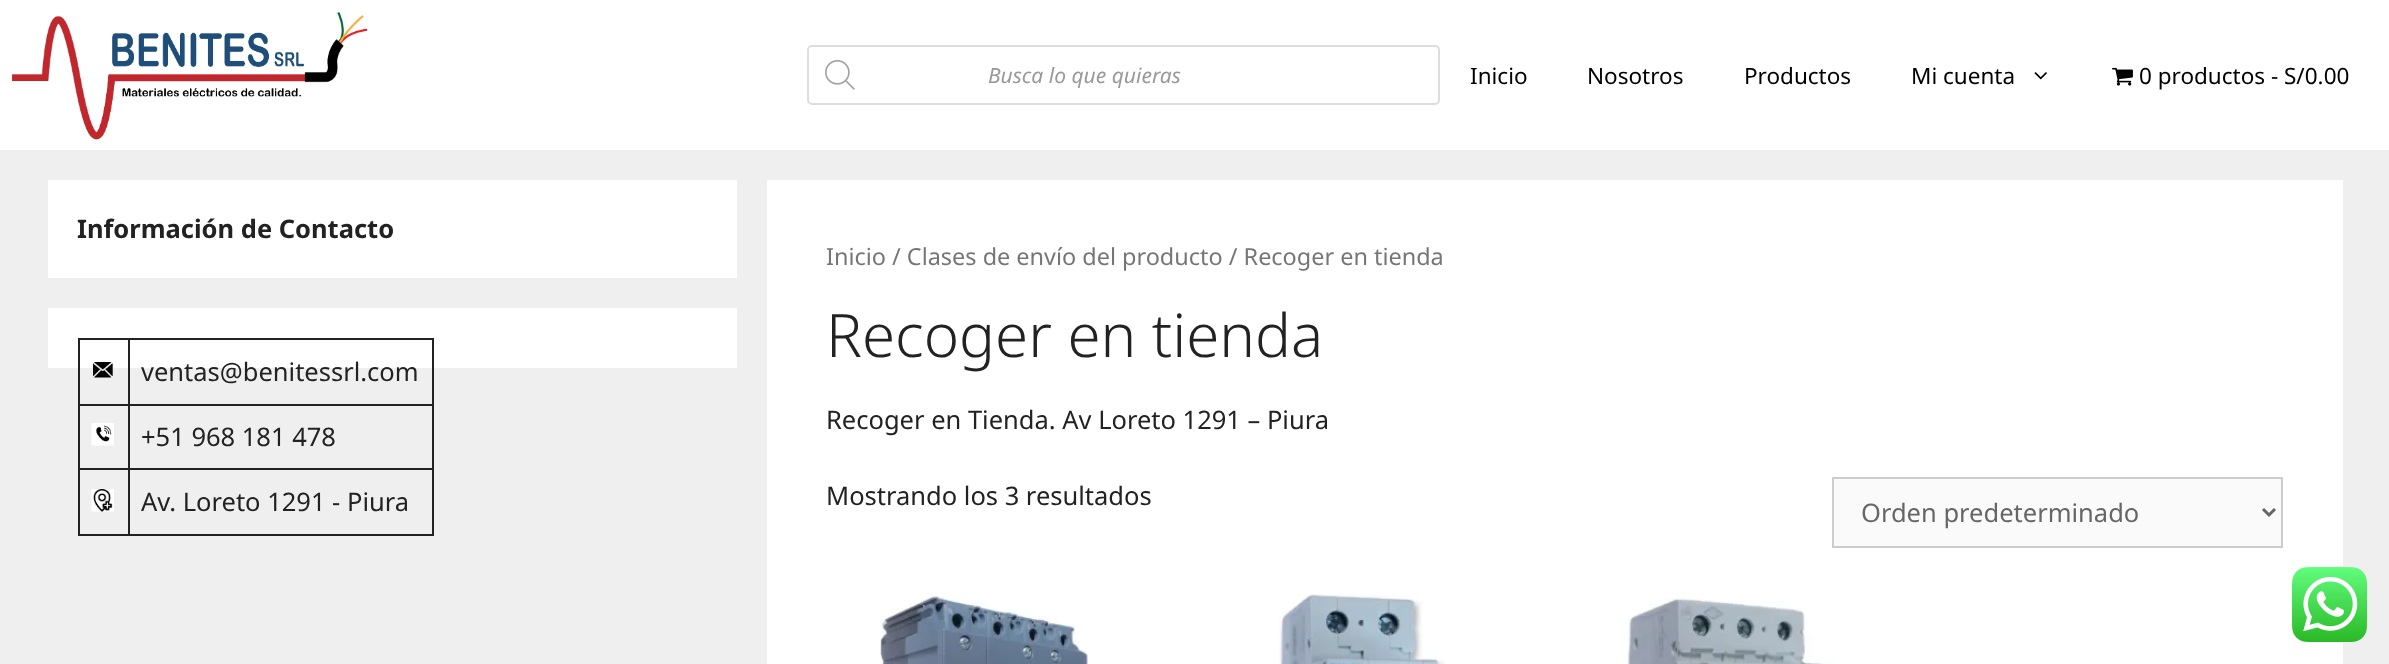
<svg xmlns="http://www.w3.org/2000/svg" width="2389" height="664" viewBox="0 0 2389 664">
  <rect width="100%" height="100%" fill="#efefef"/>
  <rect x="0" y="0" width="2389" height="150" fill="#ffffff"/>
  <image x="12" y="12" width="356" height="128" href="img1.png"/>
  <rect x="808" y="46" width="631" height="58" rx="4" fill="none" stroke="#dddddd" stroke-width="2"/>
  <image x="825" y="60" width="30" height="30" href="img2.png"/>
  <text x="988" y="83" font-family="Noto Sans" font-size="21" font-style="italic" fill="#999999">Busca lo que quieras</text>
  <text x="1470" y="84" font-family="Noto Sans" font-size="22.5" fill="#000000">Inicio</text>
  <text x="1587" y="84" font-family="Noto Sans" font-size="22.5" fill="#000000">Nosotros</text>
  <text x="1744" y="84" font-family="Noto Sans" font-size="22.5" fill="#000000">Productos</text>
  <text x="1911" y="84" font-family="Noto Sans" font-size="22.5" fill="#000000">Mi cuenta</text>
  <image x="2034" y="72" width="13" height="8" href="img3.png"/>
  <image x="2112" y="67" width="21" height="19" href="img4.png"/>
  <text x="2139" y="84" font-family="Noto Sans" font-size="22.5" fill="#000000">0 productos - S/0.00</text>
  <rect x="48" y="180" width="689" height="98" fill="#ffffff"/>
  <text x="77" y="238" font-family="Noto Sans" font-size="25.5" font-weight="bold" fill="#222222">Información de Contacto</text>
  <rect x="48" y="308" width="689" height="60" fill="#ffffff"/>
  <rect x="128" y="338" width="306" height="2" fill="#222222"/>
  <rect x="128" y="404" width="306" height="2" fill="#222222"/>
  <rect x="128" y="468" width="306" height="2" fill="#222222"/>
  <rect x="432" y="468" width="2" height="68" fill="#222222"/>
  <rect x="128" y="534" width="306" height="2" fill="#222222"/>
  <rect x="128" y="468" width="2" height="68" fill="#222222"/>
  <rect x="78" y="468" width="51" height="2" fill="#222222"/>
  <rect x="128" y="404" width="2" height="66" fill="#222222"/>
  <rect x="78" y="404" width="51" height="2" fill="#222222"/>
  <rect x="128" y="338" width="2" height="67" fill="#222222"/>
  <rect x="78" y="338" width="51" height="2" fill="#222222"/>
  <rect x="78" y="534" width="51" height="2" fill="#222222"/>
  <rect x="78" y="468" width="2" height="68" fill="#222222"/>
  <rect x="78" y="404" width="2" height="66" fill="#222222"/>
  <rect x="78" y="338" width="2" height="67" fill="#222222"/>
  <image x="93" y="362" width="20" height="16" href="img5.png"/>
  <rect x="432" y="404" width="2" height="66" fill="#222222"/>
  <rect x="432" y="338" width="2" height="67" fill="#222222"/>
  <text x="141" y="381" font-family="Noto Sans" font-size="25.5" fill="#222222">ventas@benitessrl.com</text>
  <image x="91" y="423" width="23" height="23" href="img6.png"/>
  <text x="141" y="446" font-family="Noto Sans" font-size="25.5" fill="#222222">+51 968 181 478</text>
  <image x="91" y="489" width="23" height="23" href="img7.png"/>
  <text x="141" y="511" font-family="Noto Sans" font-size="25.5" fill="#222222">Av. Loreto 1291 - Piura</text>
  <rect x="767" y="180" width="1576" height="484" fill="#ffffff"/>
  <text x="826" y="265" font-family="Noto Sans" font-size="23.45" fill="#767676">Inicio / Clases de envío del producto / Recoger en tienda</text>
  <text x="826" y="357" font-family="Noto Sans" font-size="60" font-weight="300" fill="#222222">Recoger en tienda</text>
  <text x="826" y="429" font-family="Noto Sans" font-size="25.5" fill="#222222">Recoger en Tienda. Av Loreto 1291 – Piura</text>
  <text x="826" y="505" font-family="Noto Sans" font-size="25.5" fill="#222222">Mostrando los 3 resultados</text>
  <rect x="1833" y="478" width="449" height="69" fill="#fafafa" stroke="#cccccc" stroke-width="2"/>
  <path d="M2263 509L2269 515L2275 509" fill="none" stroke="#666666" stroke-width="3"/>
  <text x="1861" y="522" font-family="Noto Sans" font-size="25.5" fill="#666666">Orden predeterminado</text>
  <image x="880" y="594" width="208" height="70" href="img8.png"/>
  <image x="1279" y="594" width="166" height="70" href="img9.png"/>
  <image x="1627" y="598" width="206" height="66" href="img10.png"/>
  <image x="2292" y="567" width="75" height="75" href="img11.png"/>
</svg>
